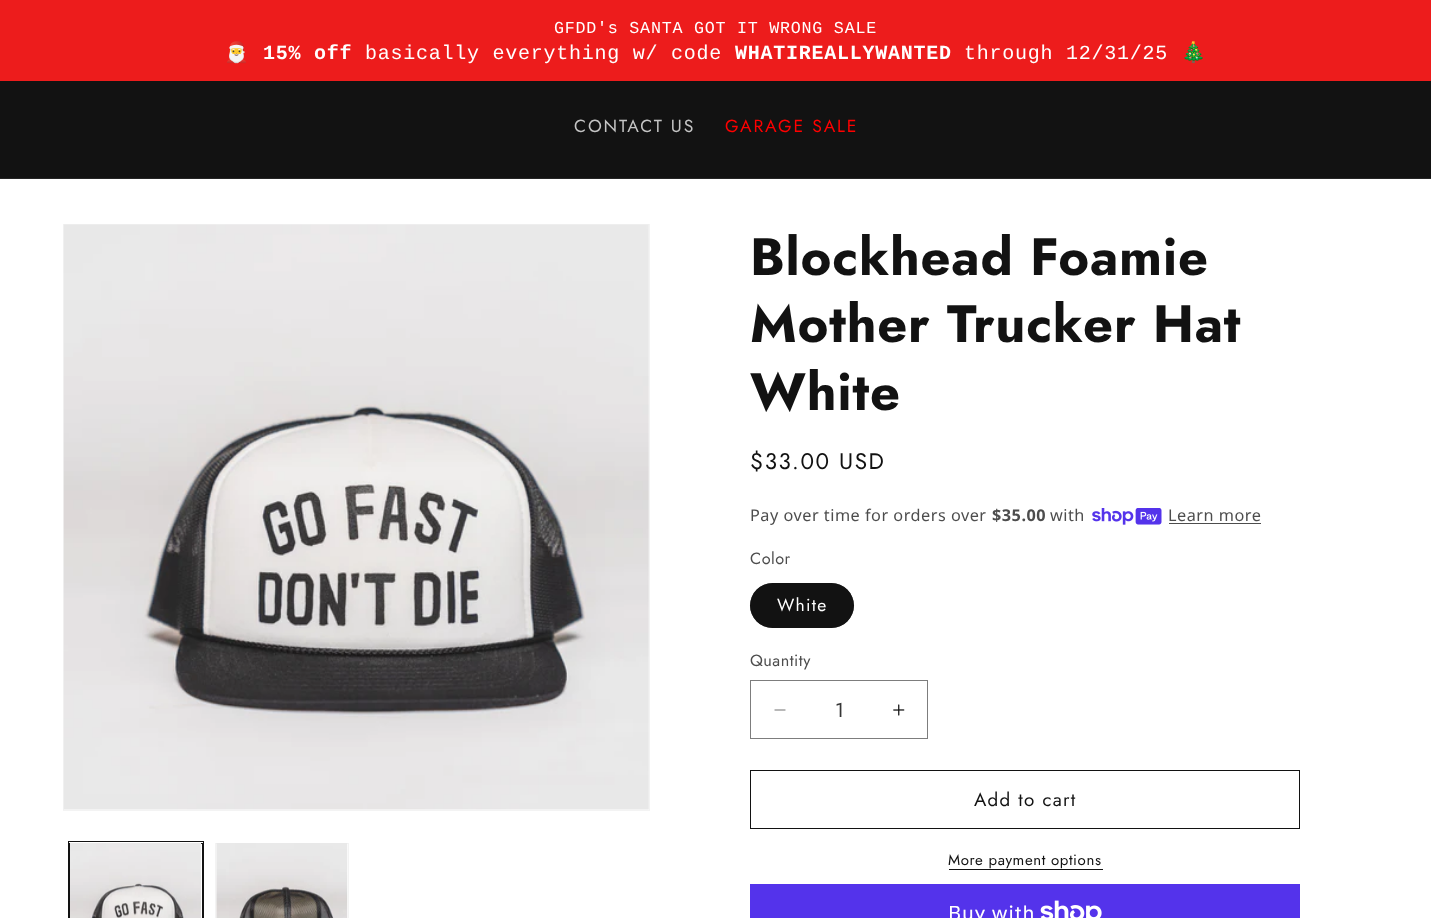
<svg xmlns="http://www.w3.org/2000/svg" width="1431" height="918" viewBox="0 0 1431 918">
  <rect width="100%" height="100%" fill="#ffffff"/>
  <rect x="0" y="0" width="1431" height="81" fill="#ed1c1c"/>
  <text x="554" y="33" font-family="Liberation Mono" font-size="16.7" letter-spacing="0.75" fill="#ffffff">GFDD's SANTA GOT IT WRONG SALE</text>
  <text x="224" y="59" font-family="Noto Color Emoji" font-size="20" letter-spacing="0.75" fill="#ffffff">🎅</text>
  <text x="263" y="59" font-family="Liberation Mono" font-size="20" font-weight="bold" letter-spacing="0.75" fill="#ffffff">15% off</text>
  <text x="365" y="59" font-family="Liberation Mono" font-size="20" letter-spacing="0.75" fill="#ffffff">basically everything w/ code</text>
  <text x="735" y="59" font-family="Liberation Mono" font-size="20" font-weight="bold" letter-spacing="0.75" fill="#ffffff">WHATIREALLYWANTED</text>
  <text x="964" y="59" font-family="Liberation Mono" font-size="20" letter-spacing="0.75" fill="#ffffff">through 12/31/25</text>
  <text x="1181" y="59" font-family="Noto Color Emoji" font-size="20" letter-spacing="0.75" fill="#ffffff">🎄</text>
  <rect x="0" y="81" width="1431" height="97" fill="#121212"/>
  <rect x="0" y="178" width="1431" height="1" fill="#252525"/>
  <text x="574" y="132" font-family="Jost" font-size="17.5" letter-spacing="1.9" fill="#c4c4c4">CONTACT US</text>
  <text x="725" y="132" font-family="Jost" font-size="17.5" letter-spacing="1.9" fill="#ff0000">GARAGE SALE</text>
  <rect x="63.5" y="224.5" width="586" height="586" fill="none" stroke="#f3f3f3"/>
  <image x="63" y="224" width="586" height="586" href="img1.png"/>
  <rect x="68.5" y="841.5" width="135" height="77" fill="none" stroke="#121212"/>
  <rect x="69.5" y="843.5" width="133" height="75" fill="none" stroke="#121212"/>
  <image x="70" y="843" width="132" height="75" href="img2.png"/>
  <rect x="215.5" y="843.5" width="133" height="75" fill="none" stroke="#f3f3f3"/>
  <image x="216" y="843" width="132" height="75" href="img3.png"/>
  <text x="750" y="275" font-family="Jost" font-size="52.5" font-weight="bold" letter-spacing="0.75" fill="#121212">Blockhead Foamie</text>
  <text x="750" y="342" font-family="Jost" font-size="52.5" font-weight="bold" letter-spacing="0.75" fill="#121212">Mother Trucker Hat</text>
  <text x="750" y="410" font-family="Jost" font-size="52.5" font-weight="bold" letter-spacing="0.75" fill="#121212">White</text>
  <text x="750" y="469" font-family="Jost" font-size="22.5" letter-spacing="1.6" fill="#121212">$33.00 USD</text>
  <text x="750" y="521" font-family="Noto Sans" font-size="16.25" letter-spacing="0.5" fill="#4d4d4d">Pay over time for orders over</text>
  <text x="992" y="521" font-family="Noto Sans" font-size="16.25" font-weight="bold" letter-spacing="0.5" fill="#4d4d4d">$35.00</text>
  <text x="1050" y="521" font-family="Noto Sans" font-size="16.25" letter-spacing="0.5" fill="#4d4d4d">with</text>
  <image x="1092" y="508" width="70" height="17" href="img4.png"/>
  <text x="1168" y="521" font-family="Noto Sans" font-size="16.25" letter-spacing="0.5" fill="#4d4d4d">Learn more</text>
  <rect x="1169" y="523" width="92" height="1" fill="#4d4d4d"/>
  <text x="750" y="564" font-family="Jost" font-size="16.25" letter-spacing="0.5" fill="#4d4d4d">Color</text>
  <rect x="750" y="583" width="104" height="45" rx="22.5" fill="#121212"/>
  <rect x="750.5" y="583.5" width="103" height="44" rx="22" fill="none" stroke="#121212" stroke-opacity="0.55"/>
  <text x="777" y="611" font-family="Jost" font-size="17.5" letter-spacing="1.25" fill="#ffffff">White</text>
  <text x="750" y="666" font-family="Jost" font-size="16.25" letter-spacing="0.5" fill="#4d4d4d">Quantity</text>
  <image x="774" y="709" width="12" height="2" href="img5.png"/>
  <image x="893" y="704" width="12" height="12" href="img6.png"/>
  <rect x="750.5" y="680.5" width="177" height="58" fill="none" stroke="#7d7d7d"/>
  <text x="835" y="717" font-family="Jost" font-size="20" fill="#363636">1</text>
  <rect x="750.5" y="770.5" width="549" height="58" fill="none" stroke="#121212"/>
  <text x="974" y="806" font-family="Jost" font-size="18.75" letter-spacing="1.25" fill="#121212">Add to cart</text>
  <text x="948" y="865" font-family="Jost" font-size="15" letter-spacing="0.6" fill="#121212">More payment options</text>
  <rect x="949" y="869" width="154" height="1" fill="#121212"/>
  <rect x="750" y="884" width="550" height="34" fill="#5433eb"/>
  <text x="948" y="920" font-family="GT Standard" font-size="20" letter-spacing="0.75" fill="#ffffff">Buy with</text>
  <image x="1040" y="900" width="62" height="18" href="img7.png"/>
</svg>
